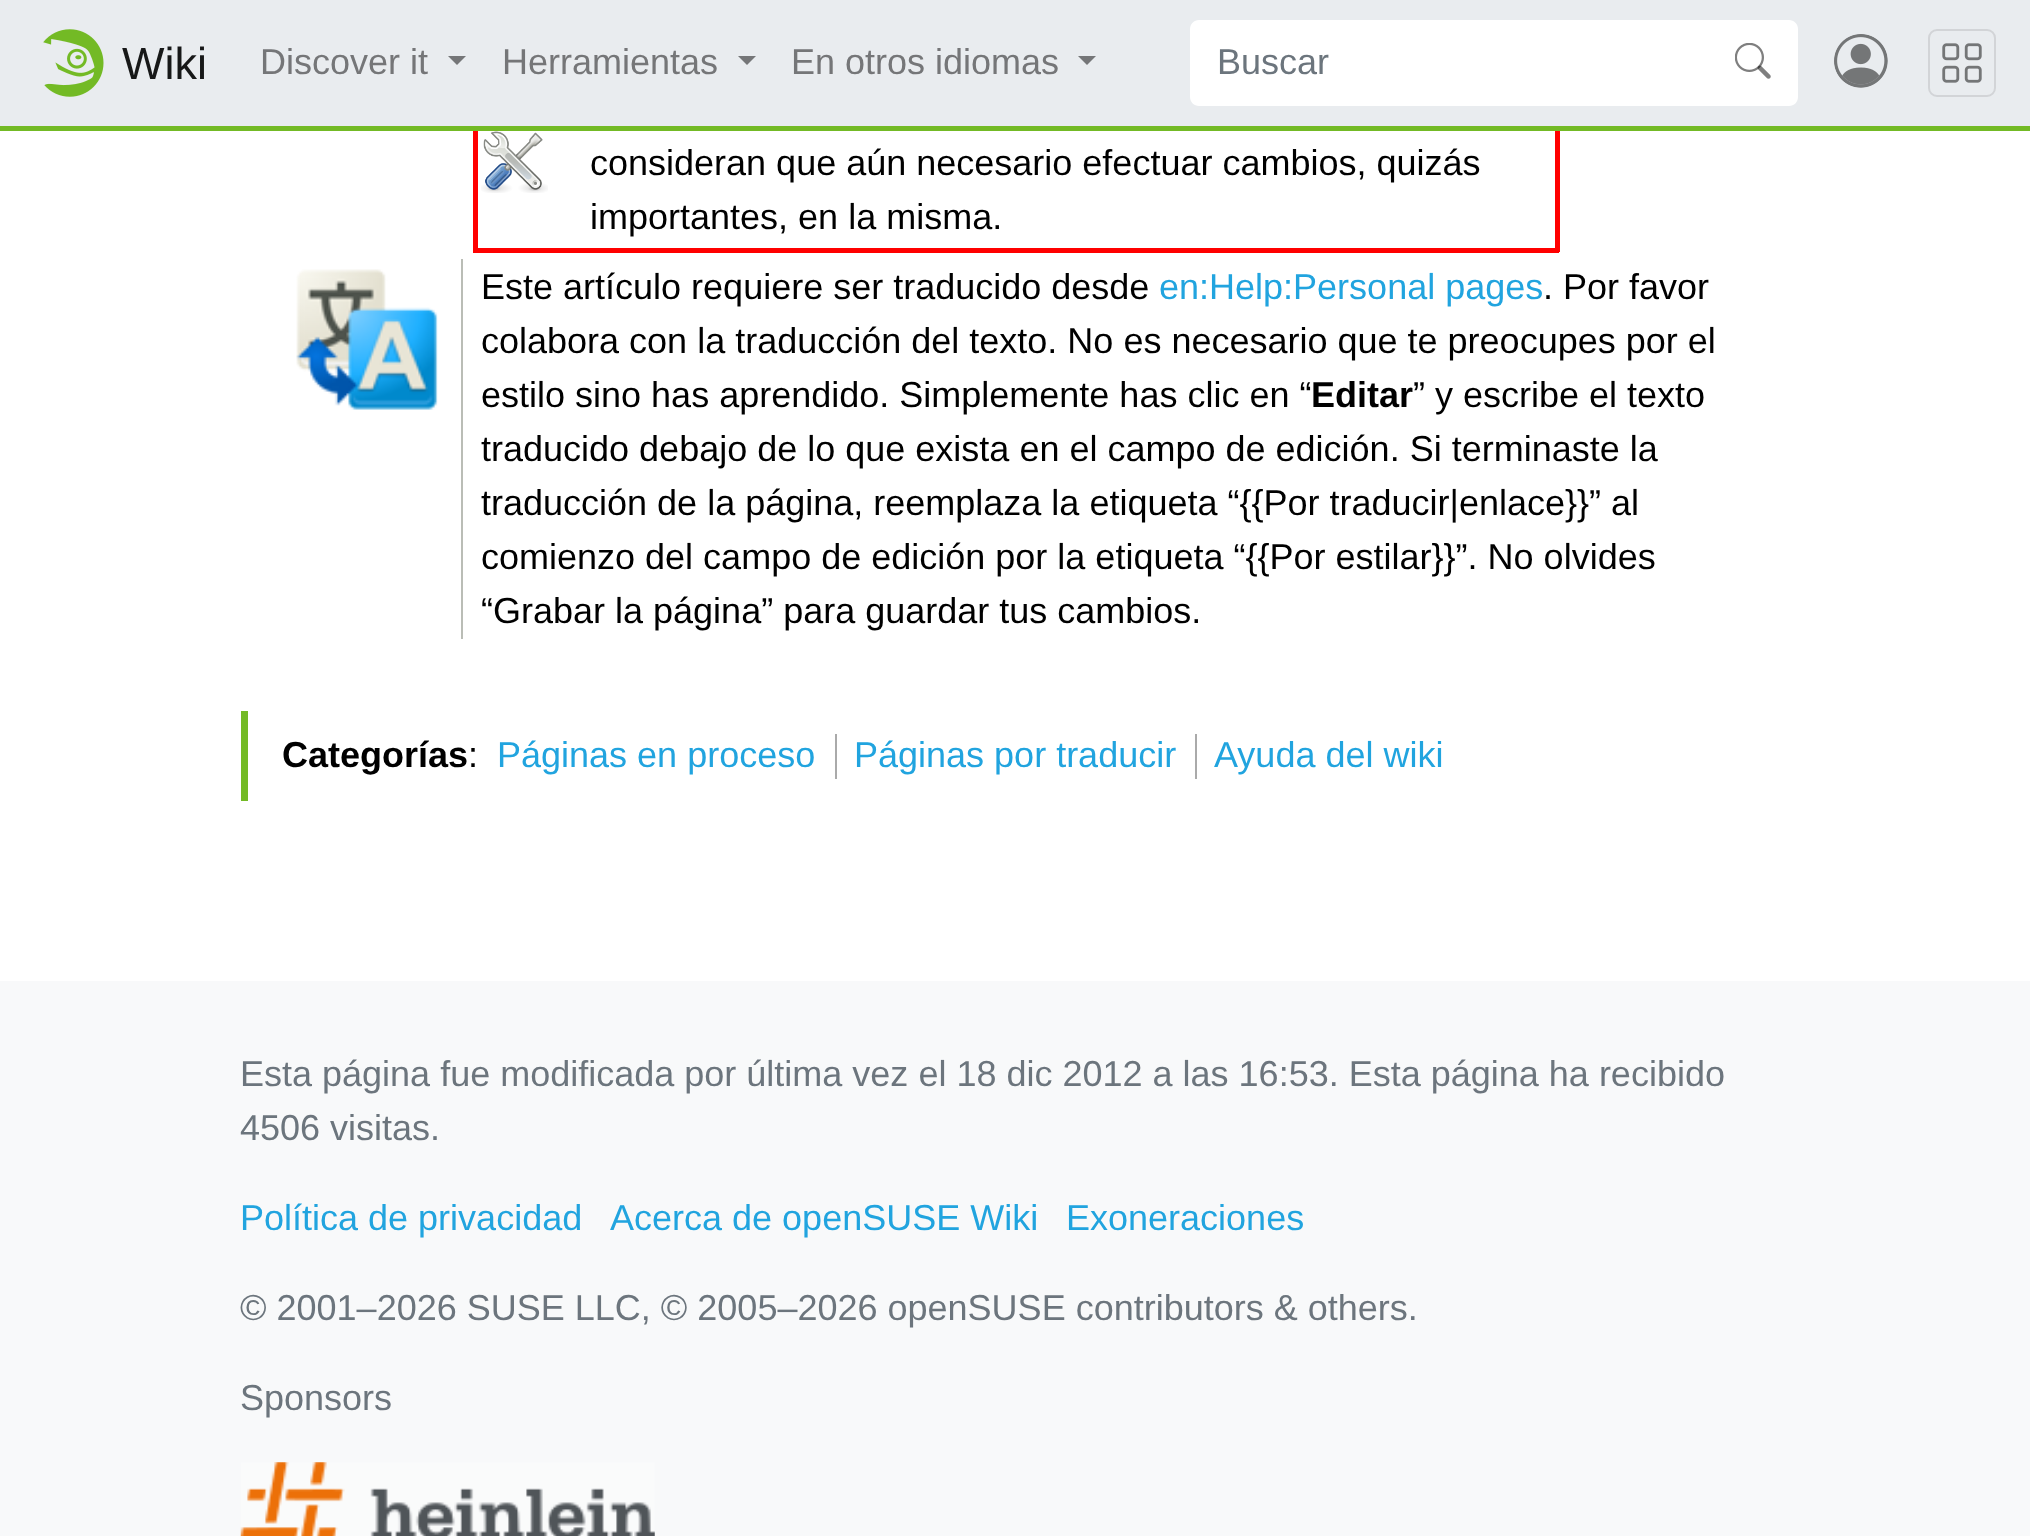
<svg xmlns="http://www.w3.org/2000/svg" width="2030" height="1536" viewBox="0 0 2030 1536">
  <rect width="100%" height="100%" fill="#ffffff"/>
  <rect x="0" y="0" width="2030" height="126" fill="#e9ecef"/>
  <rect x="0" y="126" width="2030" height="5" fill="#73ba25"/>
  <image x="43" y="29" width="61" height="68" href="img1.png"/>
  <text x="122" y="79" font-family="Liberation Sans" font-size="45" fill="#171818">Wiki</text>
  <text x="260" y="74" font-family="Liberation Sans" font-size="36" fill="#757678">Discover it</text>
  <path d="M448 56H466L457 65Z" fill="#757678"/>
  <text x="502" y="74" font-family="Liberation Sans" font-size="36" fill="#757678">Herramientas</text>
  <path d="M738 56H756L747 65Z" fill="#757678"/>
  <text x="791" y="74" font-family="Liberation Sans" font-size="36" fill="#757678">En otros idiomas</text>
  <path d="M1078 56H1096L1087 65Z" fill="#757678"/>
  <path d="M1199 20H1710V106H1199C1194 106 1190 102 1190 97V29C1190 24 1194 20 1199 20Z" fill="#ffffff"/>
  <text x="1217" y="74" font-family="Liberation Sans" font-size="36" fill="#6c757d">Buscar</text>
  <path d="M1708 20H1789C1794 20 1798 24 1798 29V97C1798 102 1794 106 1789 106H1708Z" fill="#ffffff"/>
  <image x="1735" y="43" width="36" height="36" href="img2.png"/>
  <image x="1834" y="34" width="54" height="54" href="img3.png"/>
  <rect x="1929" y="30" width="66" height="66" rx="8" fill="none" stroke="#d2d4d7" stroke-width="2"/>
  <image x="1942" y="43" width="40" height="40" href="img4.png"/>
  <rect x="1555" y="131" width="5" height="121" fill="#ff0000"/>
  <rect x="473" y="248" width="1086" height="5" fill="#ff0000"/>
  <rect x="473" y="131" width="5" height="121" fill="#ff0000"/>
  <image x="481" y="131" width="67" height="62" href="img5.png"/>
  <text x="590" y="175" font-family="Liberation Sans" font-size="36" fill="#000000">consideran que aún necesario efectuar cambios, quizás</text>
  <text x="590" y="229" font-family="Liberation Sans" font-size="36" fill="#000000">importantes, en la misma.</text>
  <image x="296" y="269" width="142" height="141" href="img6.png"/>
  <rect x="461" y="259" width="2" height="380" fill="#babdb6"/>
  <text x="481" y="299" font-family="Liberation Sans" font-size="36" fill="#000000">Este artículo requiere ser traducido desde</text>
  <text x="1159" y="299" font-family="Liberation Sans" font-size="36" fill="#21a4df">en:Help:Personal pages</text>
  <text x="1543" y="299" font-family="Liberation Sans" font-size="36" fill="#000000">. Por favor</text>
  <text x="481" y="353" font-family="Liberation Sans" font-size="36" fill="#000000">colabora con la traducción del texto. No es necesario que te preocupes por el</text>
  <text x="481" y="407" font-family="Liberation Sans" font-size="36" fill="#000000">estilo sino has aprendido. Simplemente has clic en “</text>
  <text x="1311" y="407" font-family="Liberation Sans" font-size="36" font-weight="bold" fill="#000000">Editar</text>
  <text x="1413" y="407" font-family="Liberation Sans" font-size="36" fill="#000000">” y escribe el texto</text>
  <text x="481" y="461" font-family="Liberation Sans" font-size="36" fill="#000000">traducido debajo de lo que exista en el campo de edición. Si terminaste la</text>
  <text x="481" y="515" font-family="Liberation Sans" font-size="36" fill="#000000">traducción de la página, reemplaza la etiqueta “{{Por traducir|enlace}}” al</text>
  <text x="481" y="569" font-family="Liberation Sans" font-size="36" fill="#000000">comienzo del campo de edición por la etiqueta “{{Por estilar}}”. No olvides</text>
  <text x="481" y="623" font-family="Liberation Sans" font-size="36" fill="#000000">“Grabar la página” para guardar tus cambios.</text>
  <rect x="241" y="711" width="7" height="90" fill="#73ba25"/>
  <text x="282" y="767" font-family="Liberation Sans" font-size="36" font-weight="bold" fill="#000000">Categorías</text>
  <text x="468" y="767" font-family="Liberation Sans" font-size="36" fill="#000000">:</text>
  <text x="497" y="767" font-family="Liberation Sans" font-size="36" fill="#21a4df">Páginas en proceso</text>
  <rect x="835" y="734" width="2" height="45" fill="#aaaaaa"/>
  <text x="854" y="767" font-family="Liberation Sans" font-size="36" fill="#21a4df">Páginas por traducir</text>
  <rect x="1195" y="734" width="2" height="45" fill="#aaaaaa"/>
  <text x="1214" y="767" font-family="Liberation Sans" font-size="36" fill="#21a4df">Ayuda del wiki</text>
  <rect x="0" y="981" width="2030" height="555" fill="#f8f9fa"/>
  <text x="240" y="1086" font-family="Liberation Sans" font-size="36" fill="#6c757d">Esta página fue modificada por última vez el 18 dic 2012 a las 16:53. Esta página ha recibido</text>
  <text x="240" y="1140" font-family="Liberation Sans" font-size="36" fill="#6c757d">4506 visitas.</text>
  <text x="240" y="1230" font-family="Liberation Sans" font-size="36" fill="#21a4df">Política de privacidad</text>
  <text x="610" y="1230" font-family="Liberation Sans" font-size="36" fill="#21a4df">Acerca de openSUSE Wiki</text>
  <text x="1066" y="1230" font-family="Liberation Sans" font-size="36" fill="#21a4df">Exoneraciones</text>
  <text x="240" y="1320" font-family="Liberation Sans" font-size="36" fill="#6c757d">© 2001–2026 SUSE LLC, © 2005–2026 openSUSE contributors &amp; others.</text>
  <text x="240" y="1410" font-family="Liberation Sans" font-size="36" fill="#6c757d">Sponsors</text>
  <image x="240" y="1462" width="415" height="74" href="img7.png"/>
</svg>
